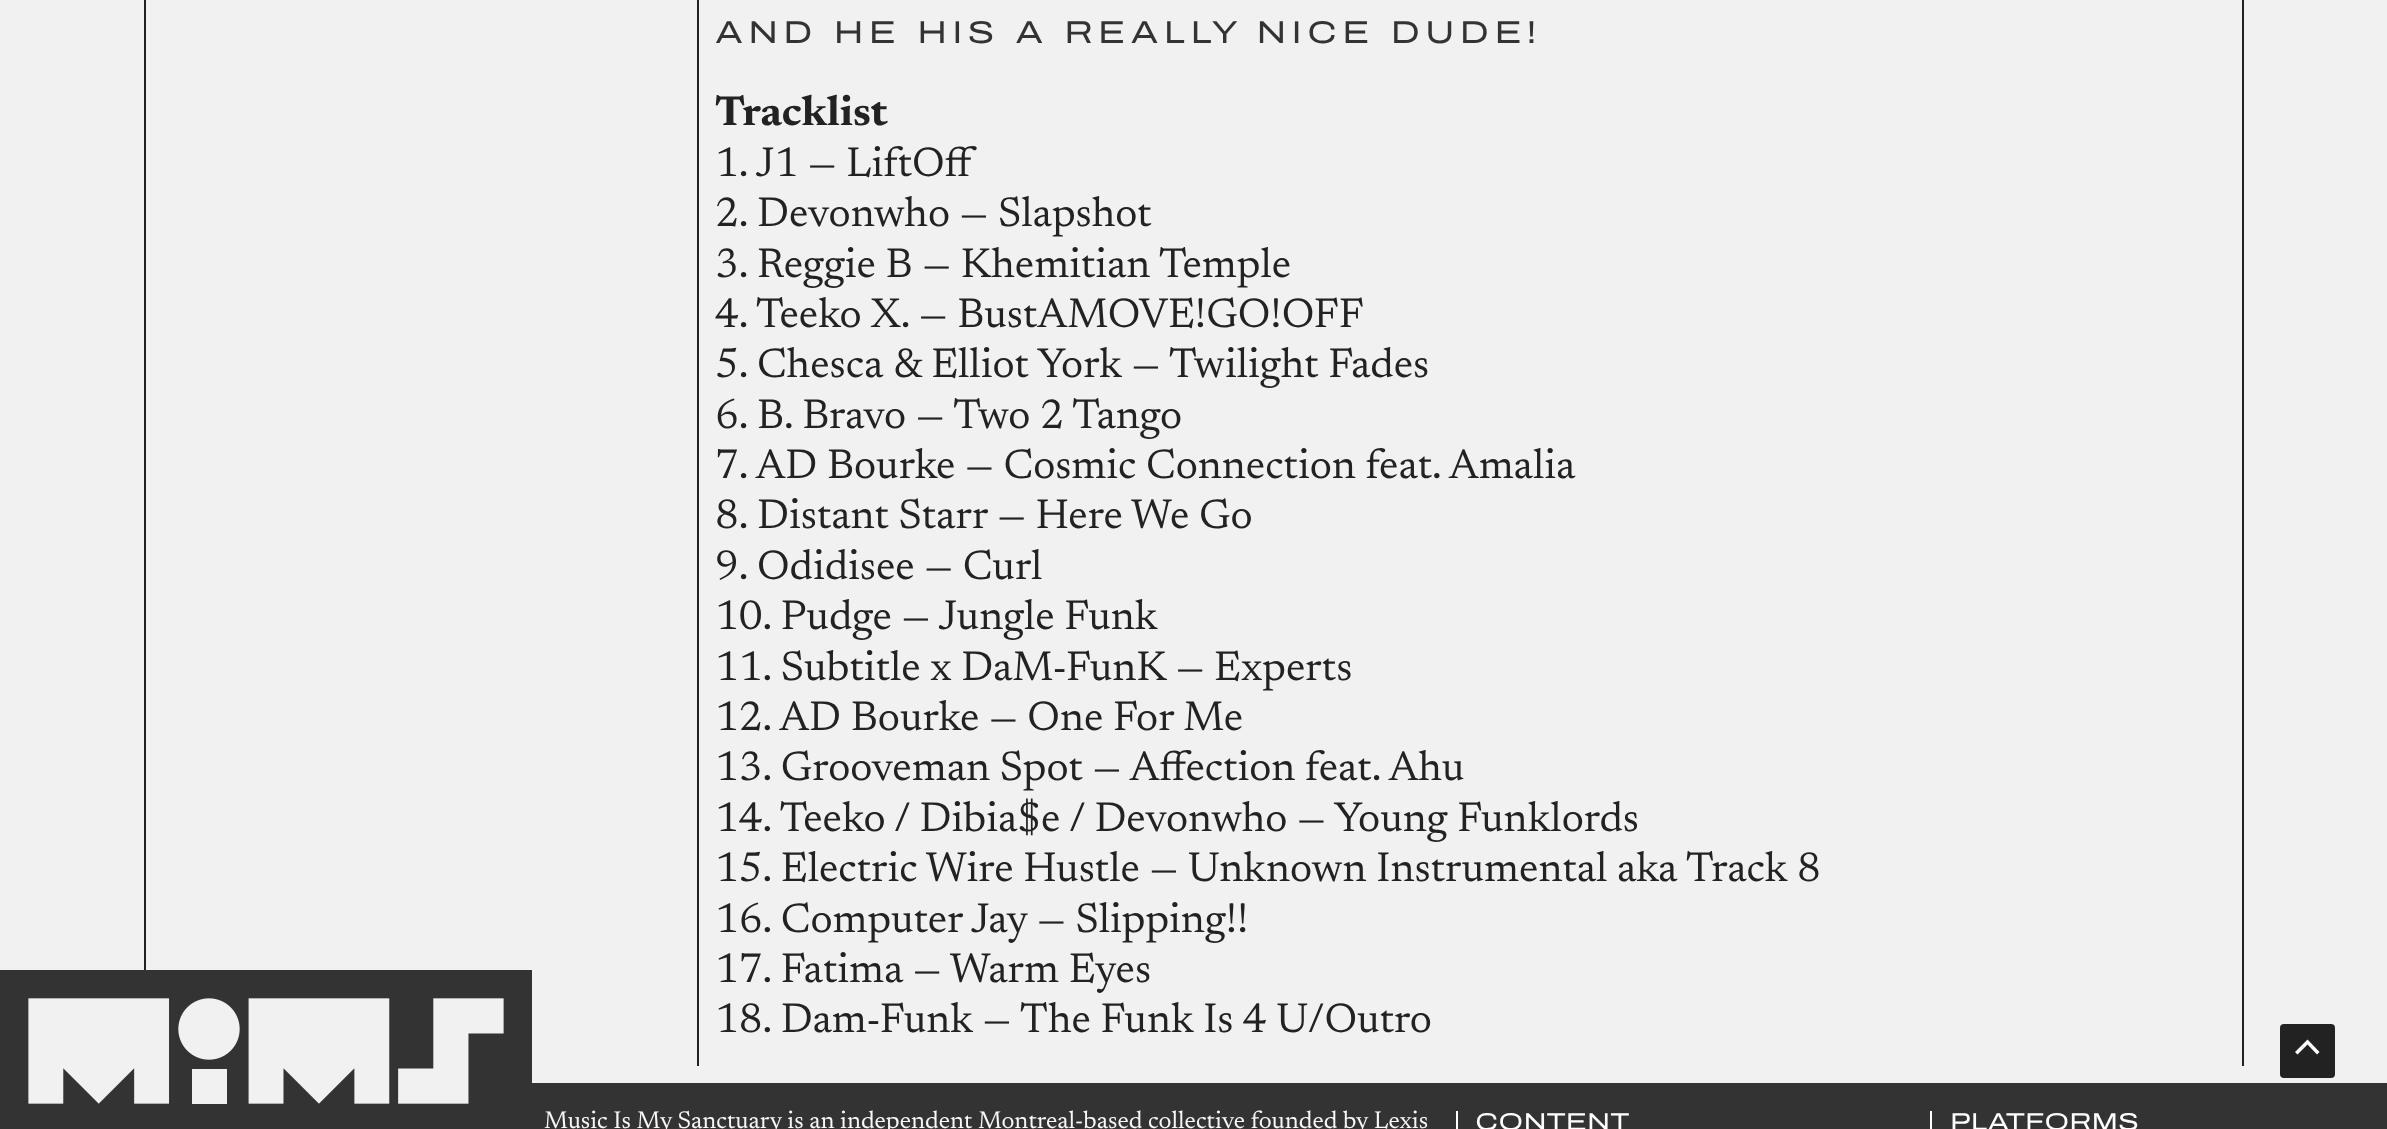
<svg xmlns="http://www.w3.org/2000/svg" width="2387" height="1129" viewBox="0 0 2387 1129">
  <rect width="100%" height="100%" fill="#f1f1f1"/>
  <rect x="2242" y="0" width="2" height="1066" fill="#222222"/>
  <rect x="144" y="0" width="2" height="970" fill="#222222"/>
  <rect x="697" y="0" width="2" height="1066" fill="#222222"/>
  <text x="715" y="43" font-family="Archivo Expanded" font-size="31.5" letter-spacing="5.25" fill="#333333">AND HE HIS A REALLY NICE DUDE!</text>
  <text x="715" y="125" font-family="Newsreader" font-size="42" font-weight="bold" fill="#222222">Tracklist</text>
  <text x="715" y="176" font-family="Newsreader" font-size="42" fill="#222222">1. J1 — LiftOff</text>
  <text x="715" y="226" font-family="Newsreader" font-size="42" fill="#222222">2. Devonwho — Slapshot</text>
  <text x="715" y="277" font-family="Newsreader" font-size="42" fill="#222222">3. Reggie B — Khemitian Temple</text>
  <text x="715" y="327" font-family="Newsreader" font-size="42" fill="#222222">4. Teeko X. — BustAMOVE!GO!OFF</text>
  <text x="715" y="377" font-family="Newsreader" font-size="42" fill="#222222">5. Chesca &amp; Elliot York — Twilight Fades</text>
  <text x="715" y="428" font-family="Newsreader" font-size="42" fill="#222222">6. B. Bravo — Two 2 Tango</text>
  <text x="715" y="478" font-family="Newsreader" font-size="42" fill="#222222">7. AD Bourke — Cosmic Connection feat. Amalia</text>
  <text x="715" y="528" font-family="Newsreader" font-size="42" fill="#222222">8. Distant Starr — Here We Go</text>
  <text x="715" y="579" font-family="Newsreader" font-size="42" fill="#222222">9. Odidisee — Curl</text>
  <text x="715" y="629" font-family="Newsreader" font-size="42" fill="#222222">10. Pudge — Jungle Funk</text>
  <text x="715" y="680" font-family="Newsreader" font-size="42" fill="#222222">11. Subtitle x DaM-FunK — Experts</text>
  <text x="715" y="730" font-family="Newsreader" font-size="42" fill="#222222">12. AD Bourke — One For Me</text>
  <text x="715" y="780" font-family="Newsreader" font-size="42" fill="#222222">13. Grooveman Spot — Affection feat. Ahu</text>
  <text x="715" y="831" font-family="Newsreader" font-size="42" fill="#222222">14. Teeko / Dibia$e / Devonwho — Young Funklords</text>
  <text x="715" y="881" font-family="Newsreader" font-size="42" fill="#222222">15. Electric Wire Hustle — Unknown Instrumental aka Track 8</text>
  <text x="715" y="932" font-family="Newsreader" font-size="42" fill="#222222">16. Computer Jay — Slipping!!</text>
  <text x="715" y="982" font-family="Newsreader" font-size="42" fill="#222222">17. Fatima — Warm Eyes</text>
  <text x="715" y="1032" font-family="Newsreader" font-size="42" fill="#222222">18. Dam-Funk — The Funk Is 4 U/Outro</text>
  <rect x="0" y="970" width="532" height="159" fill="#333333"/>
  <image x="28" y="998" width="476" height="106" href="img1.png"/>
  <rect x="532" y="1083" width="1855" height="46" fill="#333333"/>
  <text x="544" y="1128" font-family="Newsreader" font-size="24.5" fill="#f8f8f8">Music Is My Sanctuary is an independent Montreal-based collective founded by Lexis</text>
  <rect x="1456" y="1111" width="2" height="18" fill="#ffffff"/>
  <text x="1475" y="1130" font-family="Archivo Expanded" font-size="24.5" fill="#ffffff">CONTENT</text>
  <rect x="1930" y="1111" width="2" height="18" fill="#ffffff"/>
  <text x="1950" y="1130" font-family="Archivo Expanded" font-size="24.5" fill="#ffffff">PLATFORMS</text>
  <rect x="2280" y="1024" width="55" height="54" rx="4" fill="#222222"/>
  <path d="M2319.5 1052L2307.5 1039.5L2295 1052L2297.5 1054.5L2307.5 1044.5L2317 1054.5Z" fill="#ffffff"/>
</svg>
